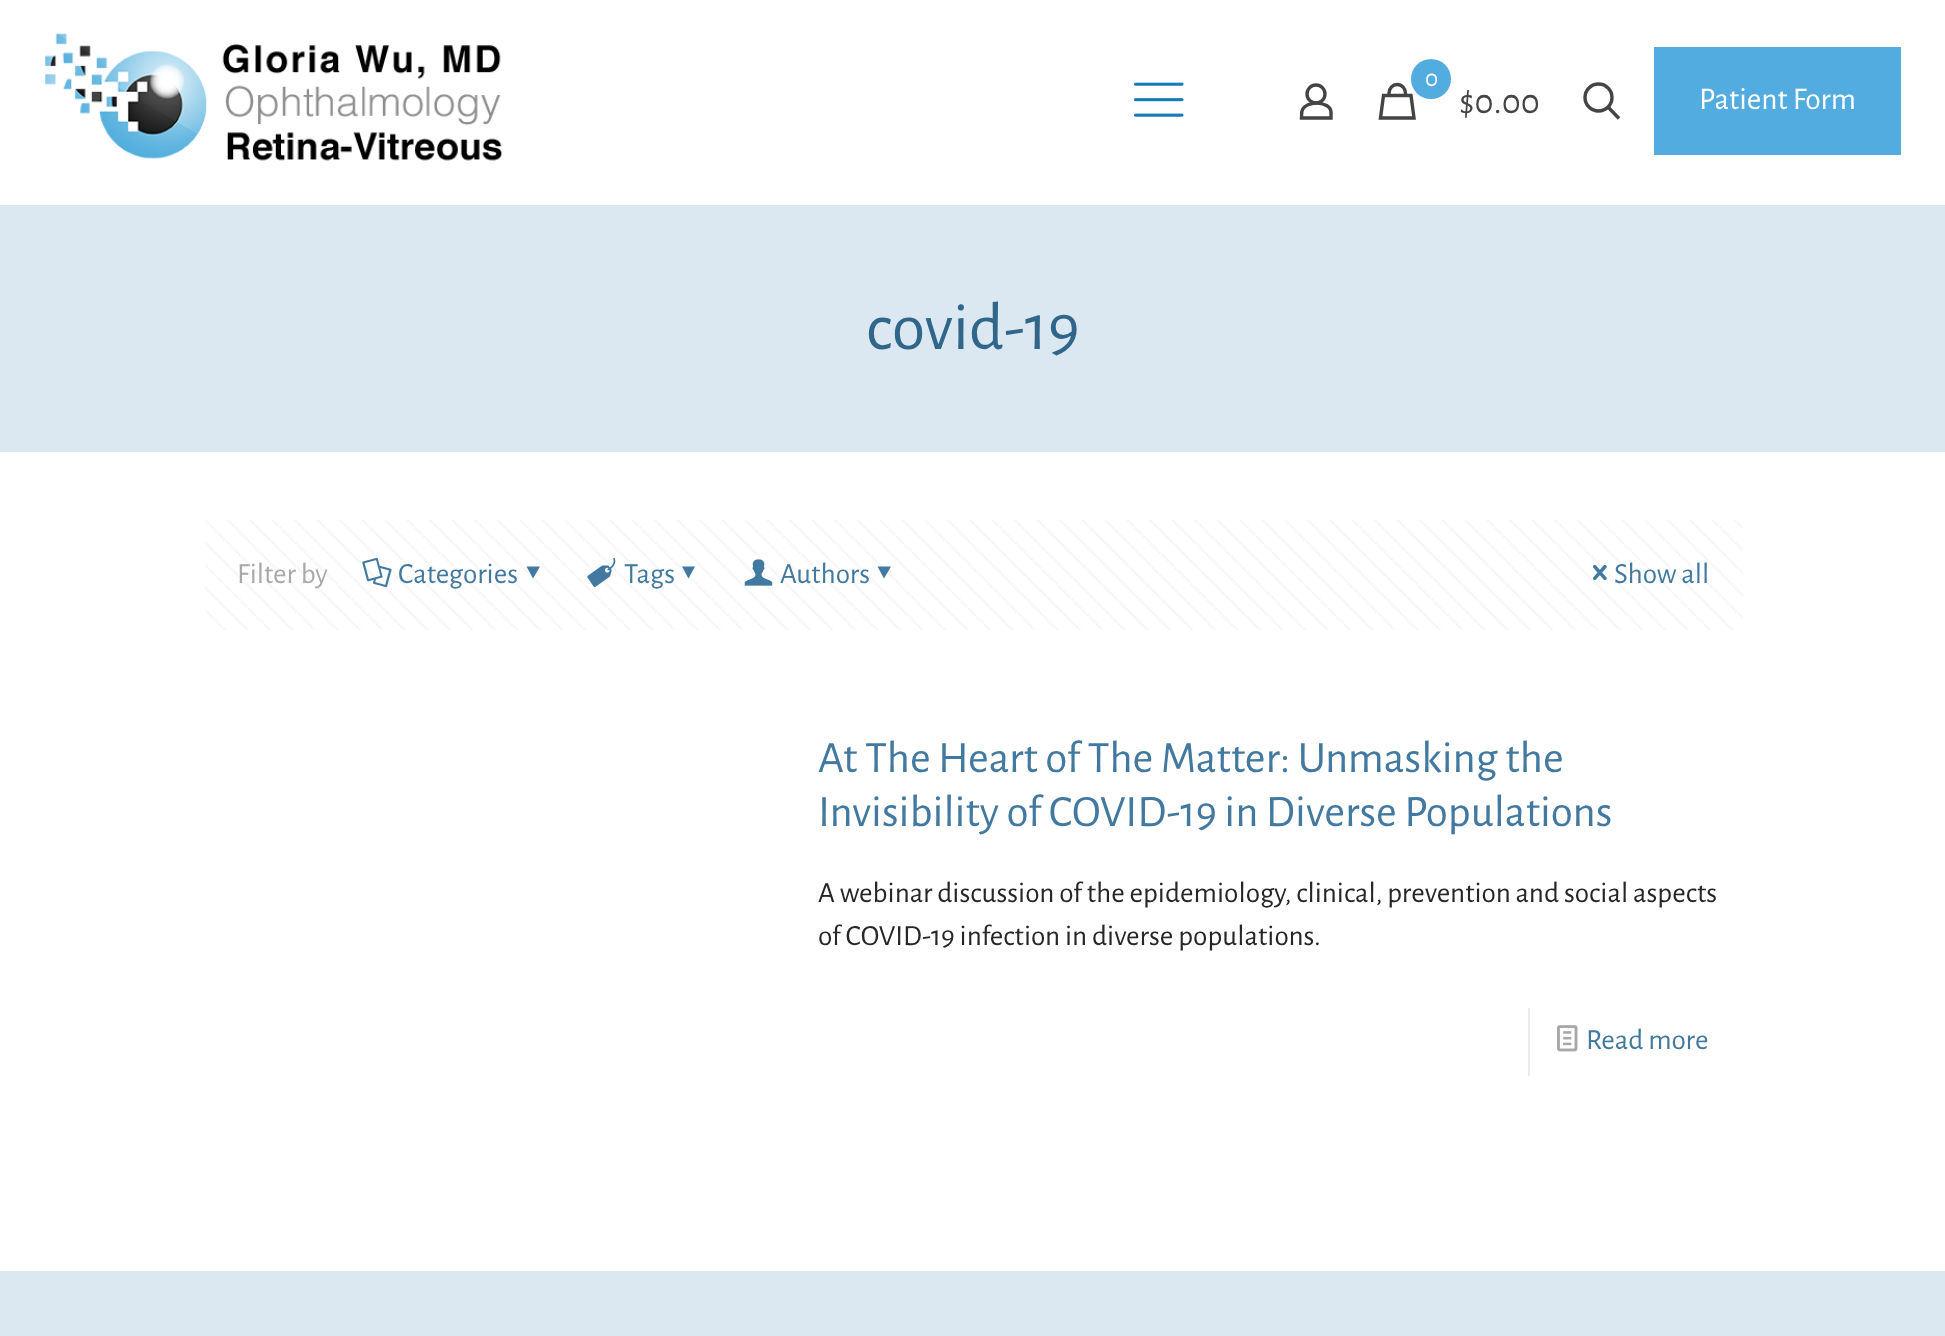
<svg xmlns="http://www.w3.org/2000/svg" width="1945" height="1336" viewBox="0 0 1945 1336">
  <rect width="100%" height="100%" fill="#ffffff"/>
  <image x="45" y="33" width="457" height="128" href="img1.png"/>
  <image x="1134" y="82" width="50" height="35" href="img2.png"/>
  <circle cx="1316" cy="94" r="9" fill="none" stroke="#444444" stroke-width="3.4"/>
  <path d="M1331 112.5V118H1301.5C1301.5 115.5 1301.5 113 1302 111C1305.5 99.5 1331 101 1331 112.5Z" fill="none" stroke="#444444" stroke-width="3.4"/>
  <path d="M1414 118H1380.5L1383.5 95.5H1411ZM1389 95.5V93C1389 88.5 1392.5 84.5 1397 84.5C1402 84.5 1405.5 88.5 1405.5 93V95.5" fill="none" stroke="#444444" stroke-width="3.4"/>
  <circle cx="1431" cy="79" r="20" fill="#52acdf"/>
  <text x="1425" y="86" font-family="Alegreya Sans" font-size="25" fill="#ffffff">0</text>
  <text x="1459" y="113" font-family="Alegreya Sans" font-size="36" fill="#444444">$0.00</text>
  <circle cx="1598.5" cy="97.5" r="13.5" fill="none" stroke="#444444" stroke-width="3.4"/>
  <path d="M1608 107L1619 118.5" fill="none" stroke="#444444" stroke-width="3.4"/>
  <rect x="1654" y="47" width="247" height="108" fill="#52acdf"/>
  <text x="1699" y="109" font-family="Alegreya Sans" font-size="31.5" fill="#ffffff">Patient Form</text>
  <rect x="0" y="205" width="1945" height="247" fill="#dbe8f1"/>
  <text x="866" y="349" font-family="Alegreya Sans" font-size="67.5" fill="#31668b">covid-19</text>
  <image x="205" y="520" width="1538" height="110" href="img3.png"/>
  <text x="237" y="583" font-family="Alegreya Sans" font-size="29.25" fill="#a8a8a8">Filter by</text>
  <image x="362" y="557" width="30" height="31" href="img4.png"/>
  <text x="398" y="583" font-family="Alegreya Sans" font-size="29.25" fill="#4179a0">Categories</text>
  <path d="M540 566.5L533 578.5L526.5 566.5Z" fill="#4179a0"/>
  <image x="587" y="557" width="29" height="31" href="img5.png"/>
  <text x="624" y="583" font-family="Alegreya Sans" font-size="29.25" fill="#4179a0">Tags</text>
  <path d="M695 566.5L688.5 578.5L682 566.5Z" fill="#4179a0"/>
  <image x="744" y="559" width="29" height="27" href="img6.png"/>
  <text x="780" y="583" font-family="Alegreya Sans" font-size="29.25" fill="#4179a0">Authors</text>
  <path d="M891 566.5L884 578.5L877.5 566.5Z" fill="#4179a0"/>
  <image x="1593" y="564" width="14" height="16" href="img7.png"/>
  <text x="1614" y="583" font-family="Alegreya Sans" font-size="29.25" fill="#4179a0">Show all</text>
  <text x="818" y="772" font-family="Alegreya Sans" font-size="45" fill="#4179a0">At The Heart of The Matter: Unmasking the</text>
  <text x="818" y="826" font-family="Alegreya Sans" font-size="45" fill="#4179a0">Invisibility of COVID-19 in Diverse Populations</text>
  <text x="818" y="902" font-family="Alegreya Sans" font-size="29.25" fill="#262626">A webinar discussion of the epidemiology, clinical, prevention and social aspects</text>
  <text x="818" y="945" font-family="Alegreya Sans" font-size="29.25" fill="#262626">of COVID-19 infection in diverse populations.</text>
  <rect x="1528" y="1008" width="2" height="68" fill="#ebebeb"/>
  <image x="1557" y="1025" width="21" height="27" href="img8.png"/>
  <text x="1586" y="1049" font-family="Alegreya Sans" font-size="29.25" fill="#4179a0">Read more</text>
  <rect x="0" y="1271" width="1945" height="65" fill="#dbe8f1"/>
</svg>
